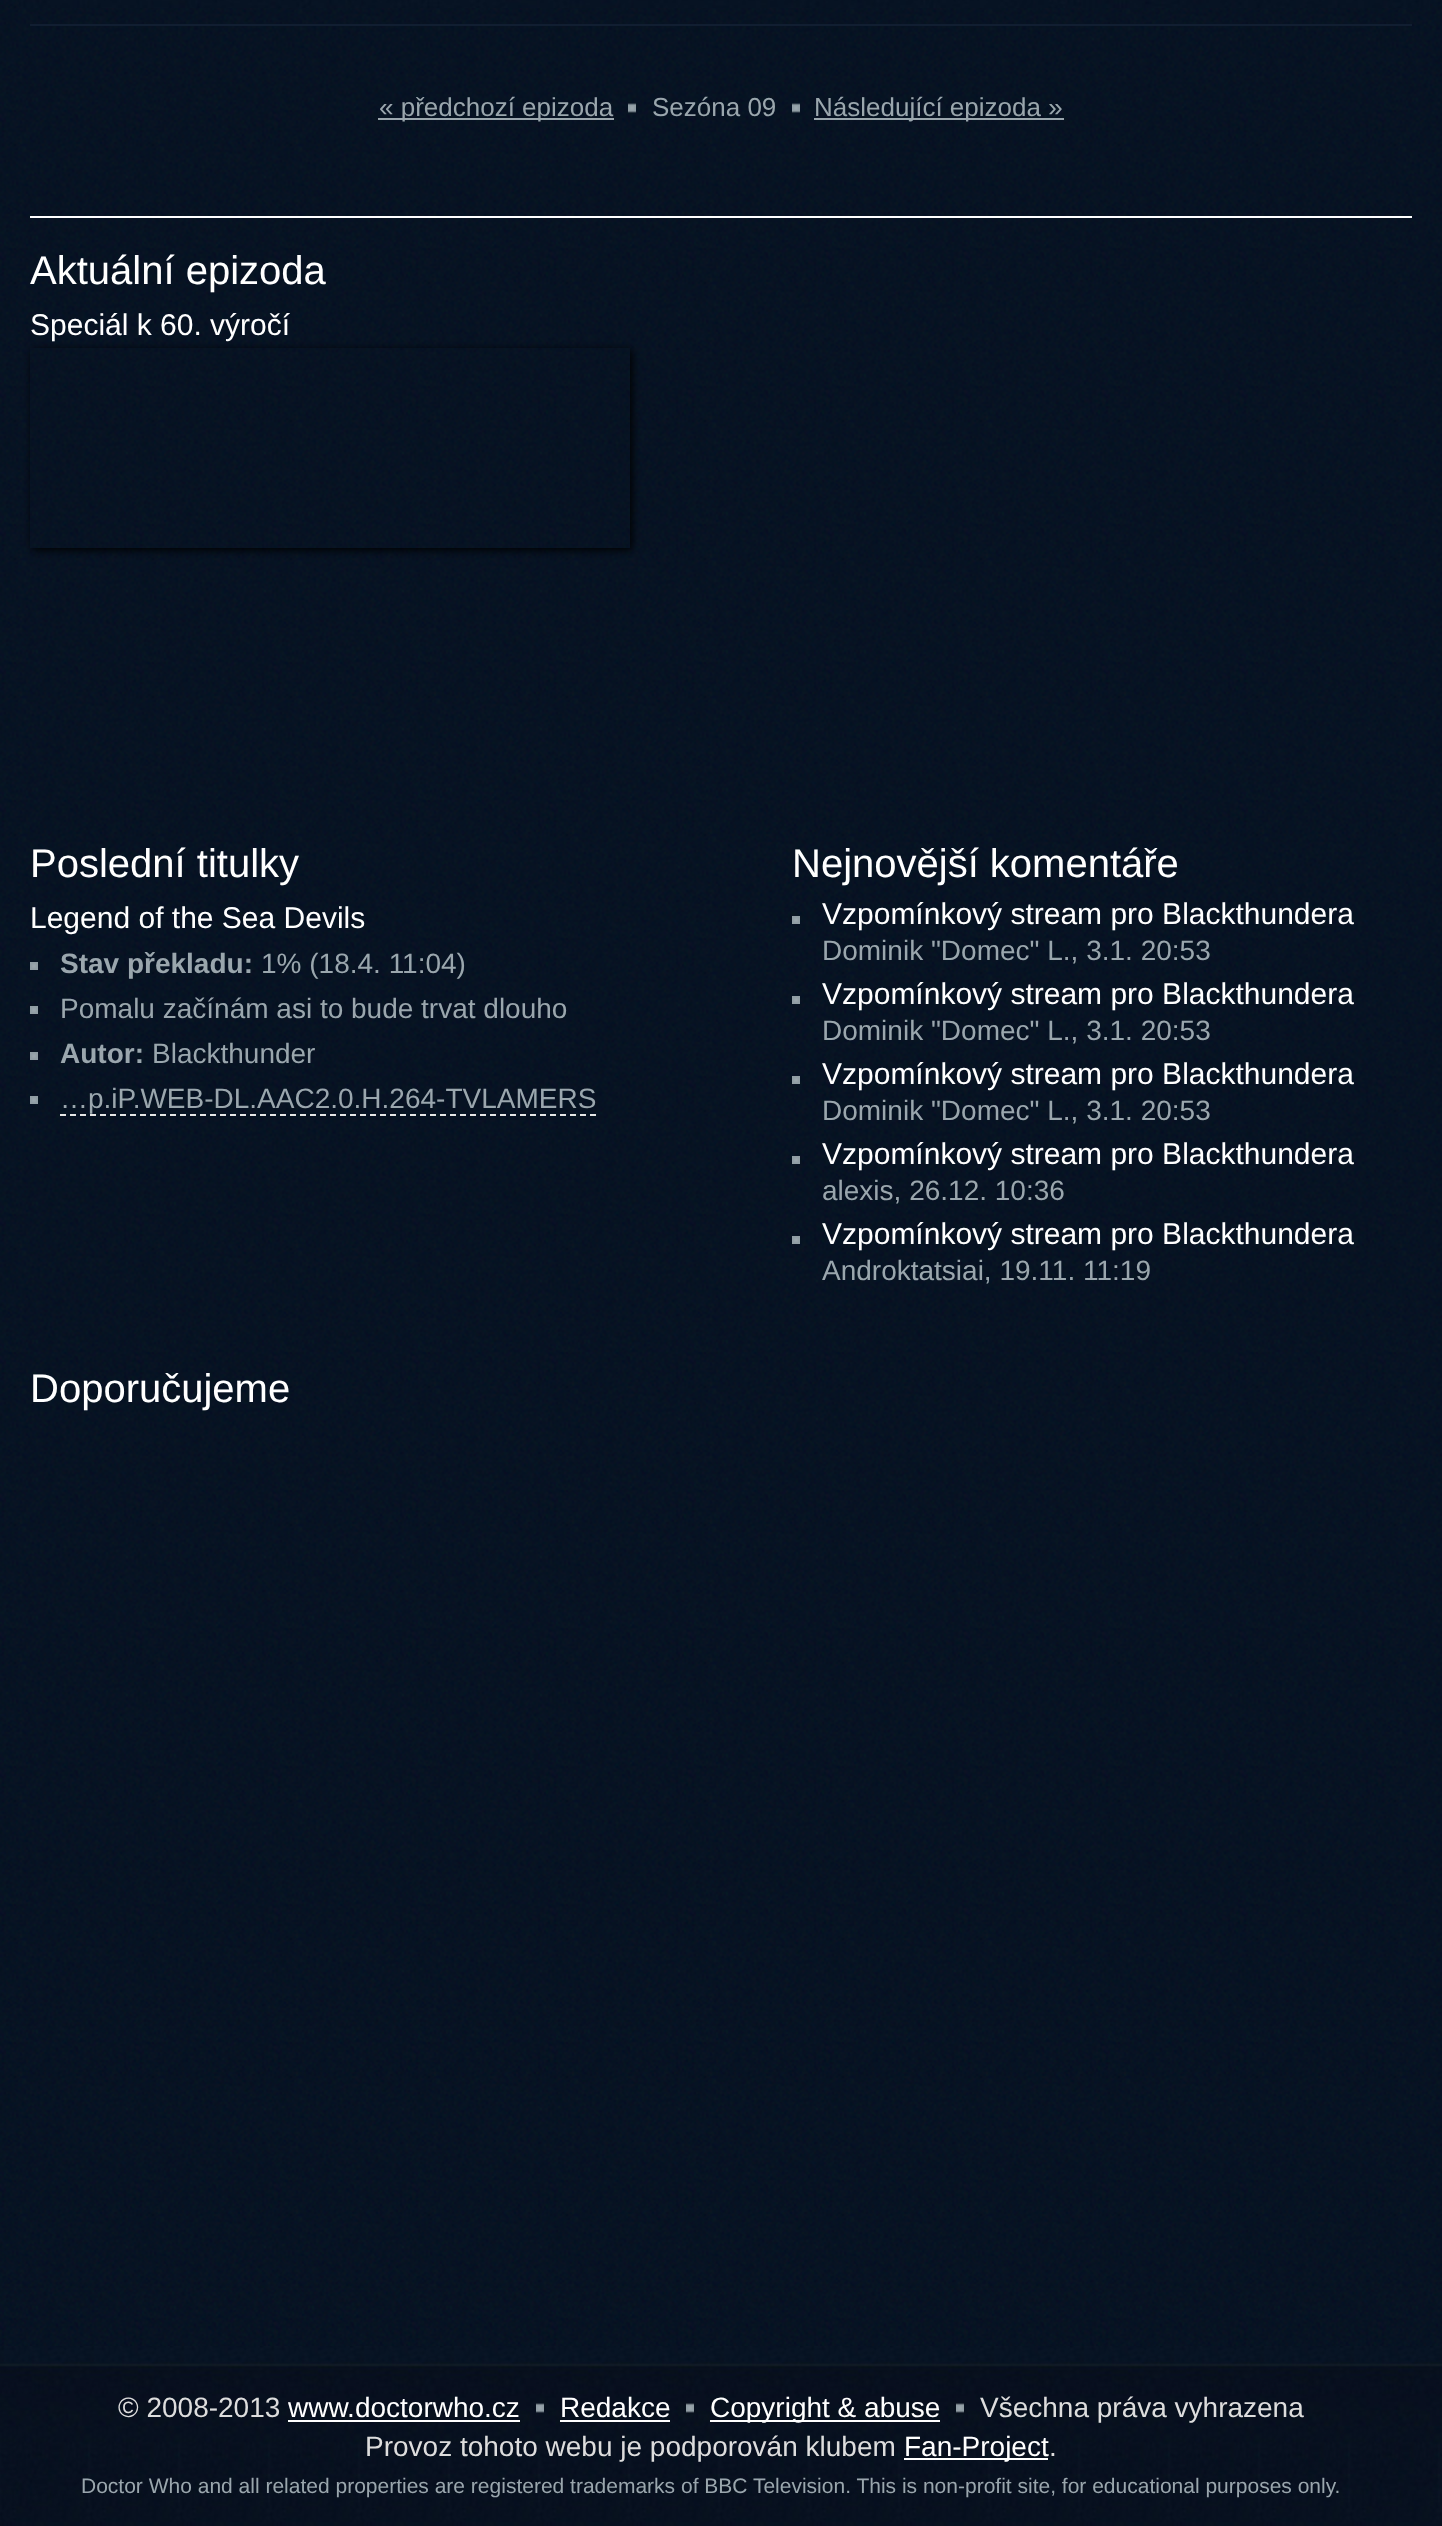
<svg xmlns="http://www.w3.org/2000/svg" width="1442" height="2526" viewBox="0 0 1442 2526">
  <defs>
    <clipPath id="clip1"><path d="M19 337H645V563H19ZM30 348H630V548H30Z" clip-rule="evenodd"/></clipPath>
    <filter id="blur1" x="-50%" y="-200%" width="200%" height="500%"><feGaussianBlur stdDeviation="4"/></filter>
  </defs>
  <rect width="100%" height="100%" fill="#ffffff"/>
  <image x="0" y="0" width="1442" height="2346" href="img1.png"/>
  <image x="19" y="0" width="1411" height="8" href="img2.png"/>
  <rect x="30" y="24" width="1382" height="2" fill="#111e31"/>
  <rect x="378" y="118" width="236" height="2" fill="#9aa6ad"/>
  <text x="379" y="116" font-family="Liberation Sans" font-size="26" fill="#9aa6ad">« předchozí epizoda</text>
  <image x="628" y="103" width="8" height="10" href="img3.png"/>
  <text x="652" y="116" font-family="Liberation Sans" font-size="26" fill="#9aa6ad">Sezóna 09</text>
  <image x="792" y="103" width="8" height="10" href="img4.png"/>
  <rect x="814" y="118" width="250" height="2" fill="#9aa6ad"/>
  <text x="814" y="116" font-family="Liberation Sans" font-size="26" fill="#9aa6ad">Následující epizoda »</text>
  <rect x="30" y="216" width="1382" height="2" fill="#ffffff"/>
  <text x="30" y="284" font-family="Liberation Sans" font-size="40" fill="#ffffff">Aktuální epizoda</text>
  <g clip-path="url(#clip1)">
    <rect x="32" y="350" width="600" height="200" fill="#000000" filter="url(#blur1)"/>
  </g>
  <text x="30" y="335" font-family="Liberation Sans" font-size="30" fill="#ffffff">Speciál k 60. výročí</text>
  <text x="30" y="877" font-family="Liberation Sans" font-size="40" fill="#ffffff">Poslední titulky</text>
  <text x="30" y="928" font-family="Liberation Sans" font-size="30" fill="#ffffff">Legend of the Sea Devils</text>
  <image x="30" y="962" width="8" height="8" href="img5.png"/>
  <text x="60" y="973" font-family="Liberation Sans" font-size="28" font-weight="bold" fill="#9aa6ad">Stav překladu:</text>
  <text x="261" y="973" font-family="Liberation Sans" font-size="28" fill="#9aa6ad">1% (18.4. 11:04)</text>
  <image x="30" y="1006" width="8" height="8" href="img6.png"/>
  <text x="60" y="1018" font-family="Liberation Sans" font-size="28" fill="#9aa6ad">Pomalu začínám asi to bude trvat dlouho</text>
  <image x="30" y="1052" width="8" height="8" href="img7.png"/>
  <text x="60" y="1063" font-family="Liberation Sans" font-size="28" font-weight="bold" fill="#9aa6ad">Autor:</text>
  <text x="152" y="1063" font-family="Liberation Sans" font-size="28" fill="#9aa6ad">Blackthunder</text>
  <image x="30" y="1096" width="8" height="8" href="img8.png"/>
  <text x="60" y="1108" font-family="Liberation Sans" font-size="28" fill="#9aa6ad">…p.iP.WEB-DL.AAC2.0.H.264-TVLAMERS</text>
  <path d="M60 1115H596" fill="none" stroke="#e6e6e6" stroke-width="2" stroke-dasharray="6 4"/>
  <text x="792" y="877" font-family="Liberation Sans" font-size="40" fill="#ffffff">Nejnovější komentáře</text>
  <image x="792" y="916" width="8" height="8" href="img9.png"/>
  <text x="822" y="924" font-family="Liberation Sans" font-size="30" fill="#ffffff">Vzpomínkový stream pro Blackthundera</text>
  <text x="822" y="960" font-family="Liberation Sans" font-size="28" fill="#9aa6ad">Dominik "Domec" L., 3.1. 20:53</text>
  <image x="792" y="996" width="8" height="8" href="img10.png"/>
  <text x="822" y="1004" font-family="Liberation Sans" font-size="30" fill="#ffffff">Vzpomínkový stream pro Blackthundera</text>
  <text x="822" y="1040" font-family="Liberation Sans" font-size="28" fill="#9aa6ad">Dominik "Domec" L., 3.1. 20:53</text>
  <image x="792" y="1076" width="8" height="8" href="img11.png"/>
  <text x="822" y="1084" font-family="Liberation Sans" font-size="30" fill="#ffffff">Vzpomínkový stream pro Blackthundera</text>
  <text x="822" y="1120" font-family="Liberation Sans" font-size="28" fill="#9aa6ad">Dominik "Domec" L., 3.1. 20:53</text>
  <image x="792" y="1156" width="8" height="8" href="img12.png"/>
  <text x="822" y="1164" font-family="Liberation Sans" font-size="30" fill="#ffffff">Vzpomínkový stream pro Blackthundera</text>
  <text x="822" y="1200" font-family="Liberation Sans" font-size="28" fill="#9aa6ad">alexis, 26.12. 10:36</text>
  <image x="792" y="1236" width="8" height="8" href="img13.png"/>
  <text x="822" y="1244" font-family="Liberation Sans" font-size="30" fill="#ffffff">Vzpomínkový stream pro Blackthundera</text>
  <text x="822" y="1280" font-family="Liberation Sans" font-size="28" fill="#9aa6ad">Androktatsiai, 19.11. 11:19</text>
  <text x="30" y="1402" font-family="Liberation Sans" font-size="40" fill="#ffffff">Doporučujeme</text>
  <image x="0" y="2346" width="1442" height="180" href="img14.png"/>
  <text x="118" y="2417" font-family="Liberation Sans" font-size="28" fill="#dddddd">© 2008-2013</text>
  <text x="288" y="2417" font-family="Liberation Sans" font-size="28" fill="#ffffff">www.doctorwho.cz</text>
  <rect x="288" y="2420" width="232" height="2" fill="#ffffff"/>
  <image x="536" y="2403" width="8" height="10" href="img15.png"/>
  <text x="560" y="2417" font-family="Liberation Sans" font-size="28" fill="#ffffff">Redakce</text>
  <rect x="560" y="2420" width="110" height="2" fill="#ffffff"/>
  <image x="686" y="2403" width="8" height="10" href="img16.png"/>
  <rect x="710" y="2420" width="230" height="2" fill="#ffffff"/>
  <text x="710" y="2417" font-family="Liberation Sans" font-size="28" fill="#ffffff">Copyright &amp; abuse</text>
  <image x="956" y="2403" width="8" height="10" href="img16.png"/>
  <text x="980" y="2417" font-family="Liberation Sans" font-size="28" fill="#dddddd">Všechna práva vyhrazena</text>
  <text x="365" y="2456" font-family="Liberation Sans" font-size="28" fill="#dddddd">Provoz tohoto webu je podporován klubem</text>
  <rect x="904" y="2458" width="144" height="2" fill="#ffffff"/>
  <text x="904" y="2456" font-family="Liberation Sans" font-size="28" fill="#ffffff">Fan-Project</text>
  <text x="1049" y="2456" font-family="Liberation Sans" font-size="28" fill="#dddddd">.</text>
  <text x="81" y="2493" font-family="Liberation Sans" font-size="21" fill="#9aa6ad">Doctor Who and all related properties are registered trademarks of BBC Television. This is non-profit site, for educational purposes only.</text>
</svg>
